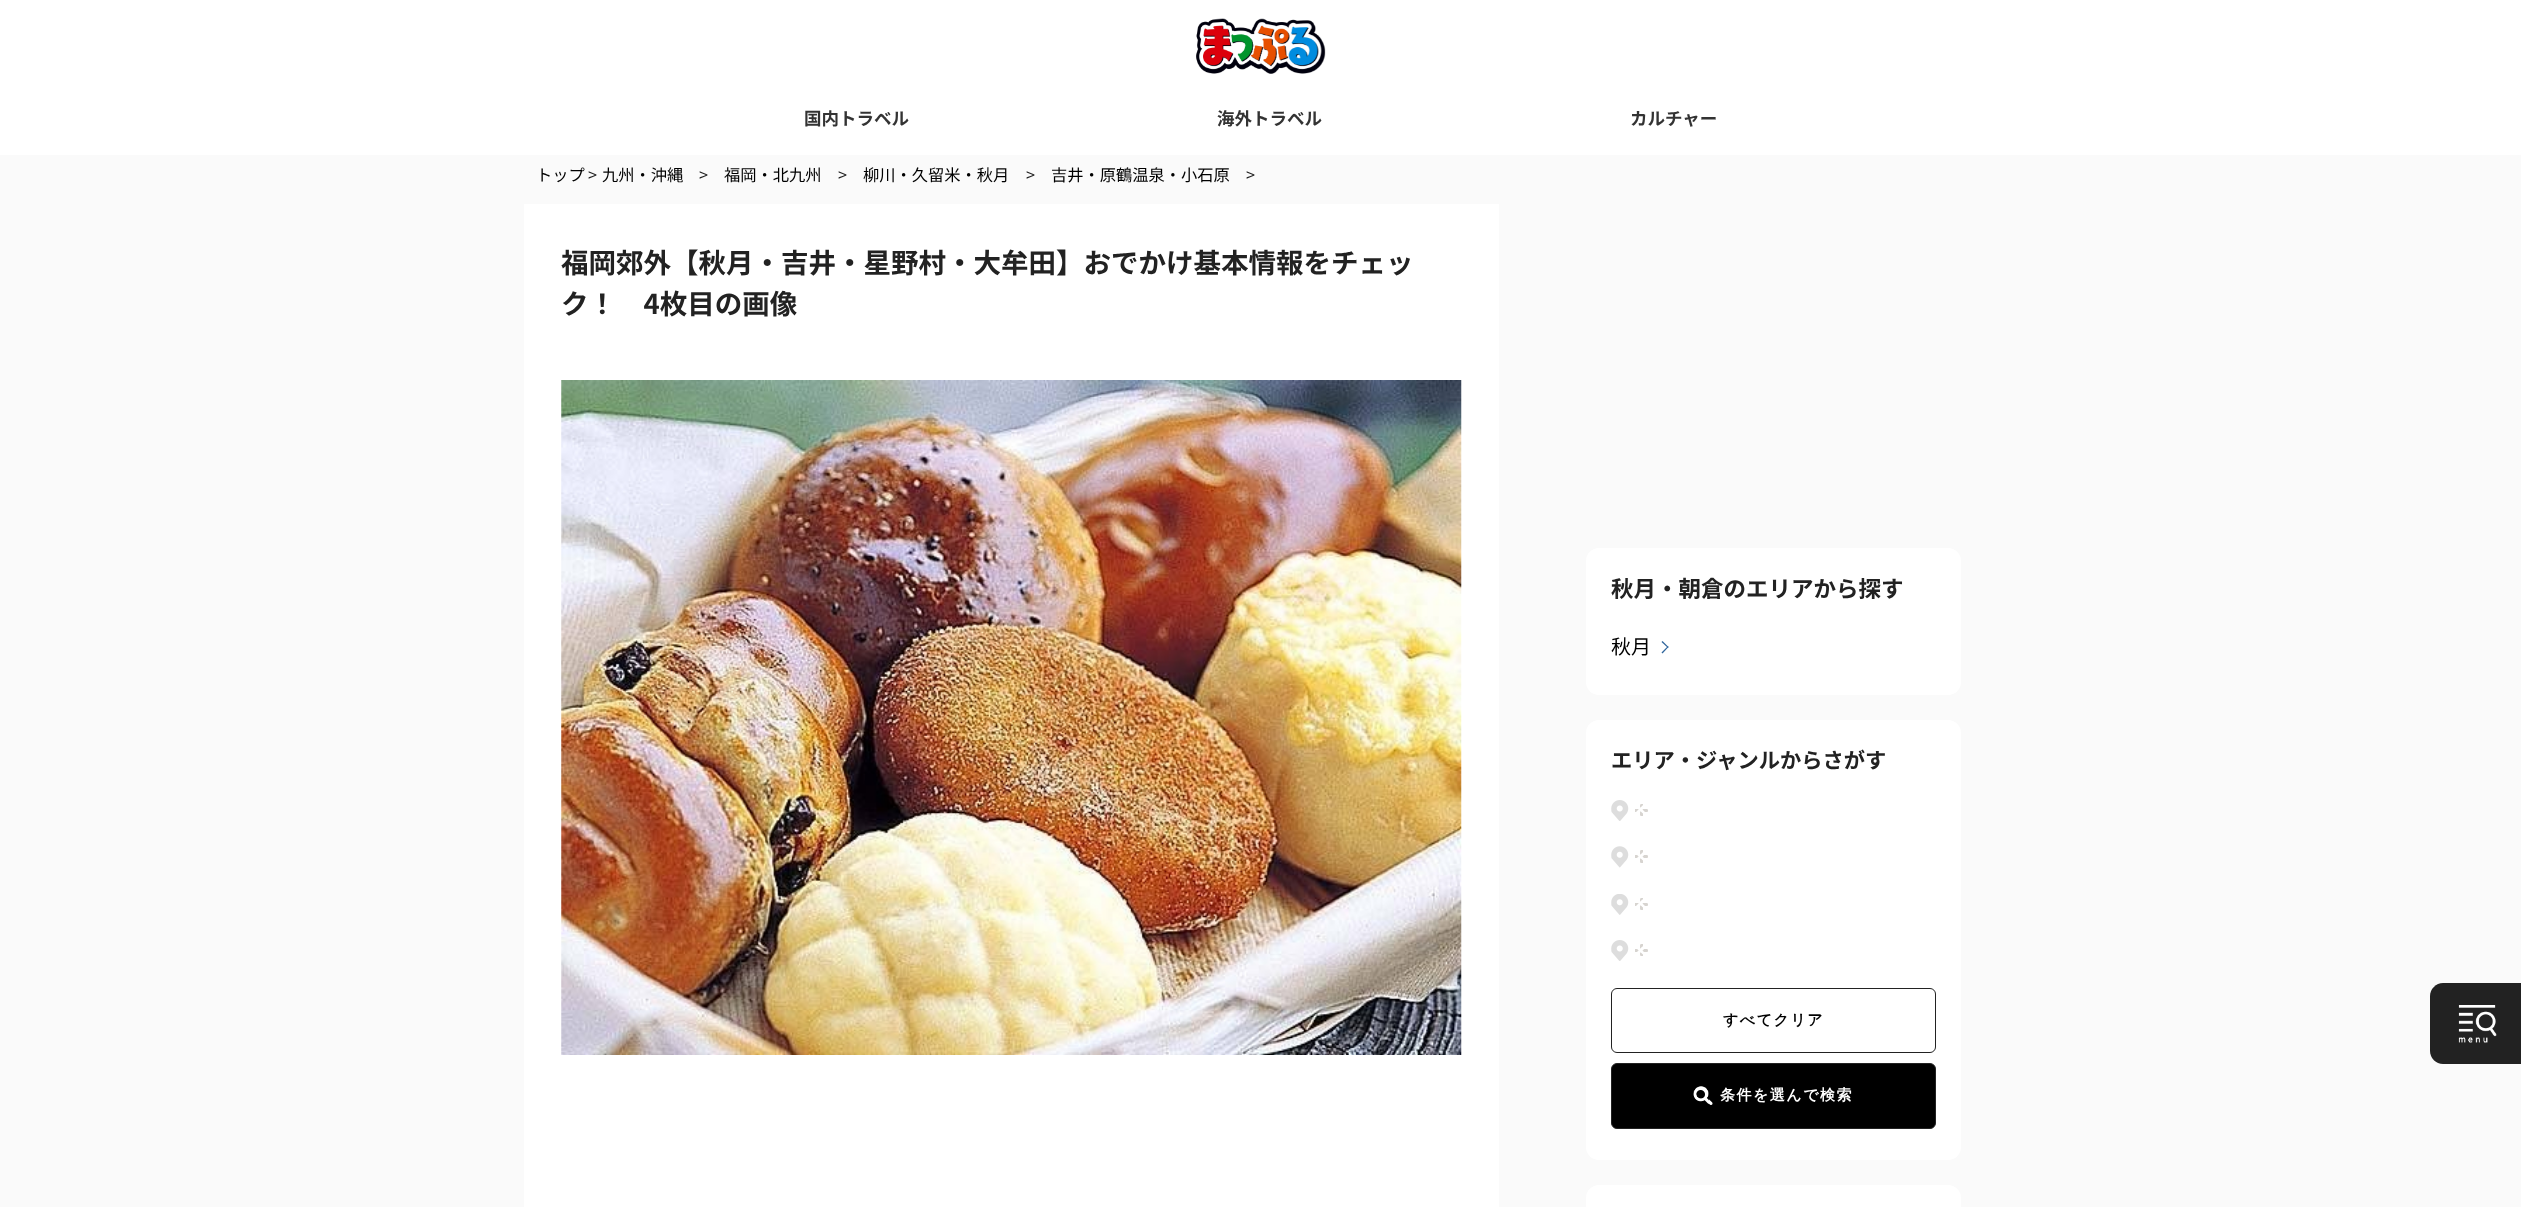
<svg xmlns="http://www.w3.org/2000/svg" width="2521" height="1207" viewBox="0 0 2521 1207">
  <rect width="100%" height="100%" fill="#fafafa"/>
  <rect x="0" y="0" width="2521" height="155" fill="#ffffff"/>
  <image x="1196" y="18" width="130" height="56" href="img1.png"/>
  <text x="804" y="125" font-family="Noto Sans JP" font-size="17.5" font-weight="bold" fill="#333333">国内トラベル</text>
  <text x="1217" y="125" font-family="Noto Sans JP" font-size="17.5" font-weight="bold" fill="#333333">海外トラベル</text>
  <text x="1630" y="125" font-family="Noto Sans JP" font-size="17.5" font-weight="bold" fill="#333333">カルチャー</text>
  <path d="M2443 983H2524V1064H2443C2436 1064 2430 1058 2430 1051V996C2430 989 2436 983 2443 983Z" fill="#222222"/>
  <image x="2458" y="1005" width="39" height="38" href="img2.png"/>
  <text x="536" y="181" font-family="Noto Sans JP" font-size="16.25" fill="#000000">トップ</text>
  <text x="588" y="181" font-family="Noto Sans JP" font-size="16.25" fill="#222222">&gt;</text>
  <text x="602" y="181" font-family="Noto Sans JP" font-size="16.25" fill="#000000">九州・沖縄</text>
  <text x="699" y="181" font-family="Noto Sans JP" font-size="16.25" fill="#222222">&gt;</text>
  <text x="724" y="181" font-family="Noto Sans JP" font-size="16.25" fill="#000000">福岡・北九州</text>
  <text x="838" y="181" font-family="Noto Sans JP" font-size="16.25" fill="#222222">&gt;</text>
  <text x="863" y="181" font-family="Noto Sans JP" font-size="16.25" fill="#000000">柳川・久留米・秋月</text>
  <text x="1026" y="181" font-family="Noto Sans JP" font-size="16.25" fill="#222222">&gt;</text>
  <text x="1051" y="181" font-family="Noto Sans JP" font-size="16.25" fill="#000000">吉井・原鶴温泉・小石原</text>
  <text x="1246" y="181" font-family="Noto Sans JP" font-size="16.25" fill="#222222">&gt;</text>
  <rect x="524" y="204" width="975" height="1003" fill="#ffffff"/>
  <text x="561" y="273" font-family="Noto Sans JP" font-size="27.5" font-weight="bold" fill="#222222">福岡郊外【秋月・吉井・星野村・大牟田】おでかけ基本情報をチェッ</text>
  <text x="561" y="314" font-family="Noto Sans JP" font-size="27.5" font-weight="bold" fill="#222222">ク！　4枚目の画像</text>
  <image x="561" y="380" width="901" height="675" href="img3.png"/>
  <rect x="1586" y="548" width="375" height="147" rx="13" fill="#ffffff"/>
  <text x="1611" y="597" font-family="Noto Sans JP" font-size="22.5" font-weight="bold" fill="#222222">秋月・朝倉のエリアから探す</text>
  <text x="1611" y="654" font-family="Noto Sans JP" font-size="20" fill="#000000">秋月</text>
  <path d="M1662.5 641L1668.5 647L1668 648L1661.5 642Z" fill="#2e649b"/>
  <path d="M1668 646L1668.5 647L1662.5 653.5L1661.5 652.5Z" fill="#2e649b"/>
  <rect x="1586" y="720" width="375" height="440" rx="13" fill="#ffffff"/>
  <text x="1611" y="768" font-family="Noto Sans JP" font-size="21.25" font-weight="bold" fill="#222222">エリア・ジャンルからさがす</text>
  <image x="1611" y="800" width="18" height="21" href="img4.png"/>
  <path d="M1641.5 804H1643V816H1641.5C1640.5 816 1640 815.5 1640 814.5V805.5C1640 804.5 1640.5 804 1641.5 804Z" fill="#d7d4d0"/>
  <path d="M1635 809H1646.5C1647.5 809 1648 809.5 1648 810.5C1648 811.5 1647.5 812 1646.5 812H1635Z" fill="#d7d4d0"/>
  <path d="M1645 805C1646.5 806.5 1642.5 809.5 1641.5 810.5C1640.5 811 1638 815.5 1636 814C1634.5 812.5 1639 809.5 1639.5 808.5C1640.5 808 1643.5 803.5 1645 805Z" fill="#ffffff"/>
  <path d="M1638 805L1645 812C1645.5 812.5 1645.5 813.5 1645 814C1644.5 814.5 1644 814.5 1643.5 814L1636 807C1635.5 806.5 1635.5 805.5 1636 805C1636.5 804.5 1637.5 804.5 1638 805Z" fill="#ffffff"/>
  <image x="1611" y="846" width="18" height="22" href="img5.png"/>
  <path d="M1641.5 850H1643V863H1641.5C1640.5 863 1640 862.5 1640 861.5V851.5C1640 850.5 1640.5 850 1641.5 850Z" fill="#d7d4d0"/>
  <path d="M1635 855H1646.5C1647.5 855 1648 855.5 1648 856.5C1648 857.5 1647.5 858 1646.5 858H1635Z" fill="#d7d4d0"/>
  <path d="M1645 852C1646.5 853.5 1642.5 856.5 1641.5 857.5C1640.5 858 1638 862.5 1636 861C1634.5 859.5 1639 856.5 1639.5 855.5C1640.5 855 1643.5 850.5 1645 852Z" fill="#ffffff"/>
  <path d="M1638 852L1645 859C1645.5 859.5 1645.5 860.5 1645 861C1644.5 861.5 1644 861.5 1643.5 861L1636 854C1635.5 853.5 1635.5 852.5 1636 852C1636.5 851.5 1637.5 851.5 1638 852Z" fill="#ffffff"/>
  <image x="1611" y="894" width="18" height="21" href="img6.png"/>
  <path d="M1641.5 898H1643V910H1641.5C1640.5 910 1640 909.5 1640 908.5V899.5C1640 898.5 1640.5 898 1641.5 898Z" fill="#d7d4d0"/>
  <path d="M1635 903H1646.5C1647.5 903 1648 903.5 1648 904.5C1648 905.5 1647.5 906 1646.5 906H1635Z" fill="#d7d4d0"/>
  <path d="M1645 899C1646.5 900.5 1642.5 903.5 1641.5 904.5C1640.5 905 1638 909.5 1636 908C1634.5 906.5 1639 903.5 1639.5 902.5C1640.5 901.5 1643.5 897.5 1645 899Z" fill="#ffffff"/>
  <path d="M1638 899L1645 906C1645.5 906.5 1645.5 907.5 1645 908C1644.5 908.5 1644 908.5 1643.5 908L1636 901C1635.5 900.5 1635.5 899.5 1636 899C1636.5 898.5 1637.5 898.5 1638 899Z" fill="#ffffff"/>
  <image x="1611" y="940" width="18" height="21" href="img4.png"/>
  <path d="M1641.5 944H1643V956H1641.5C1640.5 956 1640 955.5 1640 954.5V945.5C1640 944.5 1640.5 944 1641.5 944Z" fill="#d7d4d0"/>
  <path d="M1635 949H1646.5C1647.5 949 1648 949.5 1648 950.5C1648 951.5 1647.5 952 1646.5 952H1635Z" fill="#d7d4d0"/>
  <path d="M1645 946C1646.5 947.5 1642.5 950.5 1641.5 951.5C1640.5 952 1638 956.5 1636 955C1634.5 953.5 1639 950.5 1639.5 949.5C1640.5 948.5 1643.5 944.5 1645 946Z" fill="#ffffff"/>
  <path d="M1638 946L1645 953C1645.5 953.5 1645.5 954.5 1645 955C1644.5 955.5 1644 955.5 1643.5 955L1636 948C1635.5 947.5 1635.5 946.5 1636 946C1636.5 945.5 1637.5 945.5 1638 946Z" fill="#ffffff"/>
  <rect x="1611.5" y="988.5" width="324" height="64" rx="5.5" fill="none" stroke="#222222"/>
  <text x="1723" y="1025" font-family="WenQuanYi Zen Hei" font-size="15" font-weight="bold" letter-spacing="1.5" fill="#000000">すべてクリア</text>
  <rect x="1611.5" y="1063.5" width="324" height="65" rx="5.5" fill="#000000" stroke="#222222"/>
  <image x="1693" y="1086" width="20" height="19" href="img7.png"/>
  <image x="1693" y="1088" width="16" height="16" href="img8.png"/>
  <text x="1720" y="1100" font-family="WenQuanYi Zen Hei" font-size="15" font-weight="bold" letter-spacing="1.5" fill="#ffffff">条件を選んで検索</text>
  <rect x="1586" y="1185" width="375" height="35" rx="13" fill="#ffffff"/>
</svg>
